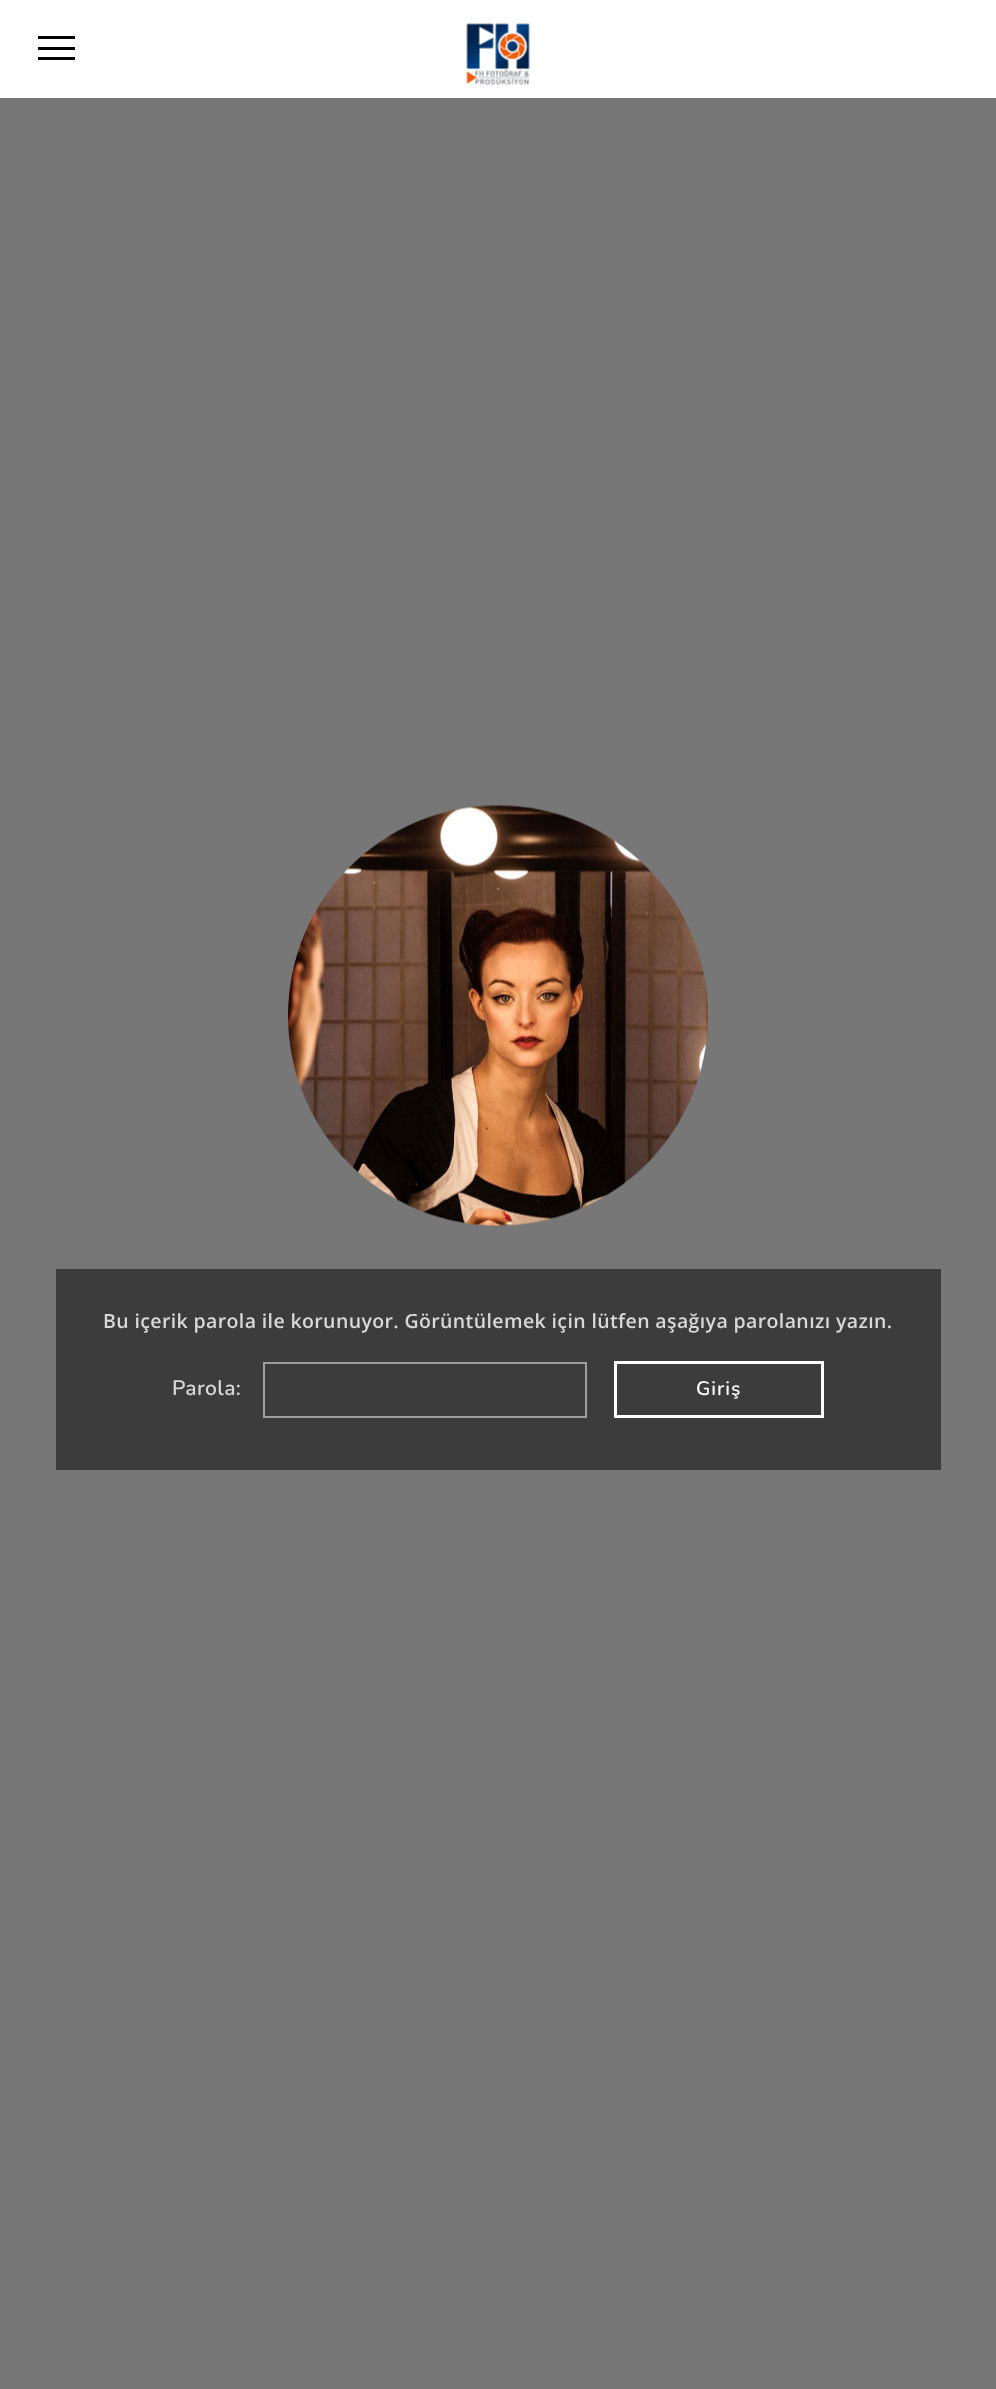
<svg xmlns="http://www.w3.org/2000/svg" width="996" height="2389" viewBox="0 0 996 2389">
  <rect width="100%" height="100%" fill="#777777"/>
  <rect x="0" y="0" width="996" height="98" fill="#ffffff"/>
  <image x="466" y="23" width="64" height="62" href="img1.png"/>
  <rect x="38" y="47" width="37" height="3" fill="#000000"/>
  <rect x="38" y="36" width="37" height="3" fill="#000000"/>
  <rect x="38" y="57" width="37" height="3" fill="#000000"/>
  <image x="288" y="805" width="420" height="421" href="img2.png"/>
  <rect x="56" y="1269" width="885" height="201" fill="#3c3c3c"/>
  <text x="103" y="1328" font-family="Open Sans" font-size="19.5" font-weight="600" letter-spacing="0.38" fill="#d8d8d8">Bu içerik parola ile korunuyor. Görüntülemek için lütfen aşağıya parolanızı yazın.</text>
  <text x="172" y="1395" font-family="Nunito" font-size="21" font-weight="600" letter-spacing="0.38" fill="#d8d8d8">Parola:</text>
  <rect x="264" y="1363" width="322" height="54" fill="none" stroke="#9e9e9e" stroke-width="2"/>
  <rect x="615.5" y="1362.5" width="207" height="54" fill="none" stroke="#ffffff" stroke-width="3"/>
  <text x="696" y="1395" font-family="Nunito" font-size="19.5" font-weight="600" letter-spacing="1" fill="#ffffff">Giriş</text>
</svg>
